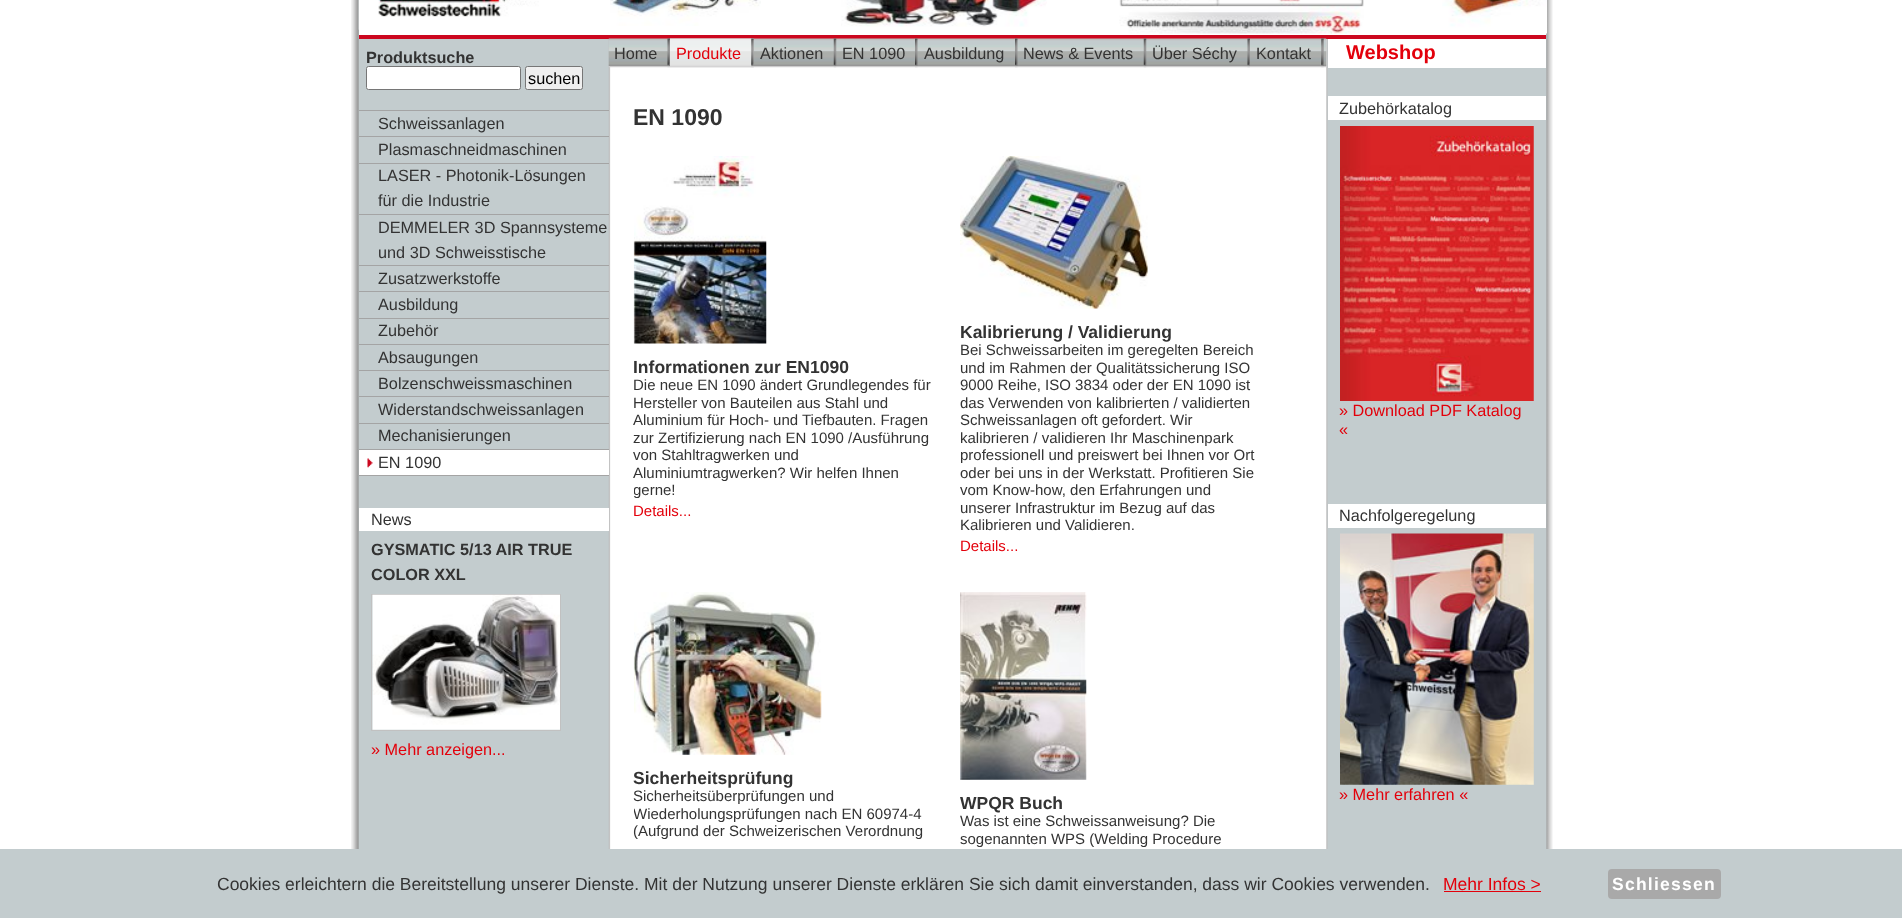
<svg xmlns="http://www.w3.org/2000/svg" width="1902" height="918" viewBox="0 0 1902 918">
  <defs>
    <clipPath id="clip1"><rect x="634" y="156" width="667" height="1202"/></clipPath>
  </defs>
  <rect width="100%" height="100%" fill="#ffffff"/>
  <image x="351" y="0" width="1202" height="849" href="img1.png"/>
  <rect x="359" y="0" width="1187" height="35" fill="#ffffff"/>
  <rect x="359" y="35" width="1187" height="4" fill="#cc071e"/>
  <image x="358" y="0" width="181" height="30" href="img2.png"/>
  <image x="610" y="0" width="151" height="26" href="img3.png"/>
  <image x="841" y="0" width="206" height="27" href="img4.png"/>
  <image x="1119" y="0" width="245" height="34" href="img5.png"/>
  <image x="1442" y="0" width="105" height="34" href="img6.png"/>
  <text x="366" y="63" font-family="Liberation Sans" font-size="16.25" font-weight="bold" fill="#333333">Produktsuche</text>
  <rect x="366.5" y="66.5" width="154" height="23" rx="2" fill="#ffffff" stroke="#767676"/>
  <rect x="525.5" y="66.5" width="57" height="23" rx="2" fill="#efefef" stroke="#767676"/>
  <text x="528" y="84" font-family="Liberation Sans" font-size="16.25" fill="#000000">suchen</text>
  <image x="608" y="38" width="719" height="30" href="img7.png"/>
  <text x="614" y="59" font-family="Liberation Sans" font-size="16.25" fill="#333333">Home</text>
  <image x="667" y="38" width="3" height="30" href="img8.png"/>
  <image x="670" y="38" width="84" height="30" href="img9.png"/>
  <text x="676" y="59" font-family="Liberation Sans" font-size="16.25" fill="#e3000b">Produkte</text>
  <image x="751" y="38" width="3" height="30" href="img10.png"/>
  <text x="760" y="59" font-family="Liberation Sans" font-size="16.25" fill="#333333">Aktionen</text>
  <image x="833" y="38" width="4" height="30" href="img11.png"/>
  <text x="842" y="59" font-family="Liberation Sans" font-size="16.25" fill="#333333">EN 1090</text>
  <image x="915" y="38" width="3" height="30" href="img12.png"/>
  <text x="924" y="59" font-family="Liberation Sans" font-size="16.25" fill="#333333">Ausbildung</text>
  <image x="1015" y="38" width="3" height="30" href="img12.png"/>
  <text x="1023" y="59" font-family="Liberation Sans" font-size="16.25" fill="#333333">News &amp; Events</text>
  <image x="1143" y="38" width="4" height="30" href="img13.png"/>
  <text x="1152" y="59" font-family="Liberation Sans" font-size="16.25" fill="#333333">Über Séchy</text>
  <image x="1247" y="38" width="3" height="30" href="img14.png"/>
  <text x="1256" y="59" font-family="Liberation Sans" font-size="16.25" fill="#333333">Kontakt</text>
  <image x="1321" y="38" width="3" height="30" href="img15.png"/>
  <text x="633" y="125" font-family="Liberation Sans" font-size="23" font-weight="bold" fill="#333333">EN 1090</text>
  <image x="633" y="156" width="134" height="188" href="img16.png"/>
  <text x="633" y="373" font-family="Liberation Sans" font-size="17.5" font-weight="bold" fill="#333333">Informationen zur EN1090</text>
  <text x="633" y="390" font-family="Liberation Sans" font-size="15" fill="#333333">Die neue EN 1090 ändert Grundlegendes für</text>
  <text x="633" y="408" font-family="Liberation Sans" font-size="15" fill="#333333">Hersteller von Bauteilen aus Stahl und</text>
  <text x="633" y="425" font-family="Liberation Sans" font-size="15" fill="#333333">Aluminium für Hoch- und Tiefbauten. Fragen</text>
  <text x="633" y="443" font-family="Liberation Sans" font-size="15" fill="#333333">zur Zertifizierung nach EN 1090 /Ausführung</text>
  <text x="633" y="460" font-family="Liberation Sans" font-size="15" fill="#333333">von Stahltragwerken und</text>
  <text x="633" y="478" font-family="Liberation Sans" font-size="15" fill="#333333">Aluminiumtragwerken? Wir helfen Ihnen</text>
  <g clip-path="url(#clip1)">
    <text x="633" y="495" font-family="Liberation Sans" font-size="15" fill="#333333">gerne!</text>
  </g>
  <text x="633" y="516" font-family="Liberation Sans" font-size="15" fill="#e3000b">Details...</text>
  <image x="960" y="156" width="188" height="153" href="img17.png"/>
  <text x="960" y="338" font-family="Liberation Sans" font-size="17.5" font-weight="bold" fill="#333333">Kalibrierung / Validierung</text>
  <text x="960" y="355" font-family="Liberation Sans" font-size="15" fill="#333333">Bei Schweissarbeiten im geregelten Bereich</text>
  <text x="960" y="373" font-family="Liberation Sans" font-size="15" fill="#333333">und im Rahmen der Qualitätssicherung ISO</text>
  <text x="960" y="390" font-family="Liberation Sans" font-size="15" fill="#333333">9000 Reihe, ISO 3834 oder der EN 1090 ist</text>
  <text x="960" y="408" font-family="Liberation Sans" font-size="15" fill="#333333">das Verwenden von kalibrierten / validierten</text>
  <text x="960" y="425" font-family="Liberation Sans" font-size="15" fill="#333333">Schweissanlagen oft gefordert. Wir</text>
  <text x="960" y="443" font-family="Liberation Sans" font-size="15" fill="#333333">kalibrieren / validieren Ihr Maschinenpark</text>
  <text x="960" y="460" font-family="Liberation Sans" font-size="15" fill="#333333">professionell und preiswert bei Ihnen vor Ort</text>
  <text x="960" y="478" font-family="Liberation Sans" font-size="15" fill="#333333">oder bei uns in der Werkstatt. Profitieren Sie</text>
  <text x="960" y="495" font-family="Liberation Sans" font-size="15" fill="#333333">vom Know-how, den Erfahrungen und</text>
  <text x="960" y="513" font-family="Liberation Sans" font-size="15" fill="#333333">unserer Infrastruktur im Bezug auf das</text>
  <text x="960" y="530" font-family="Liberation Sans" font-size="15" fill="#333333">Kalibrieren und Validieren.</text>
  <text x="960" y="551" font-family="Liberation Sans" font-size="15" fill="#e3000b">Details...</text>
  <image x="633" y="592" width="189" height="163" href="img18.png"/>
  <text x="633" y="784" font-family="Liberation Sans" font-size="17.5" font-weight="bold" fill="#333333">Sicherheitsprüfung</text>
  <text x="633" y="801" font-family="Liberation Sans" font-size="15" fill="#333333">Sicherheitsüberprüfungen und</text>
  <g clip-path="url(#clip1)">
    <text x="633" y="819" font-family="Liberation Sans" font-size="15" fill="#333333">Wiederholungsprüfungen nach EN 60974-4</text>
  </g>
  <text x="633" y="836" font-family="Liberation Sans" font-size="15" fill="#333333">(Aufgrund der Schweizerischen Verordnung</text>
  <image x="960" y="592" width="127" height="188" href="img19.png"/>
  <text x="960" y="809" font-family="Liberation Sans" font-size="17.5" font-weight="bold" fill="#333333">WPQR Buch</text>
  <text x="960" y="826" font-family="Liberation Sans" font-size="15" fill="#333333">Was ist eine Schweissanweisung? Die</text>
  <text x="960" y="844" font-family="Liberation Sans" font-size="15" fill="#333333">sogenannten WPS (Welding Procedure</text>
  <rect x="1328" y="39" width="218" height="29" fill="#ffffff"/>
  <text x="1346" y="59" font-family="Liberation Sans" font-size="20" font-weight="bold" fill="#e3000b">Webshop</text>
  <rect x="1328" y="96" width="218" height="24" fill="#ffffff"/>
  <text x="1339" y="114" font-family="Liberation Sans" font-size="16.25" fill="#333333">Zubehörkatalog</text>
  <image x="1340" y="126" width="194" height="275" href="img20.png"/>
  <text x="1339" y="416" font-family="Liberation Sans" font-size="16.25" fill="#e3000b">» Download PDF Katalog</text>
  <text x="1339" y="435" font-family="Liberation Sans" font-size="16.25" fill="#e3000b">«</text>
  <rect x="1328" y="504" width="218" height="24" fill="#ffffff"/>
  <text x="1339" y="521" font-family="Liberation Sans" font-size="16.25" fill="#333333">Nachfolgeregelung</text>
  <image x="1340" y="533" width="194" height="252" href="img21.png"/>
  <text x="1339" y="800" font-family="Liberation Sans" font-size="16.25" fill="#e3000b">» Mehr erfahren «</text>
  <rect x="359" y="475" width="250" height="1" fill="#a4a4a4"/>
  <rect x="359" y="110" width="250" height="1" fill="#a4a4a4"/>
  <text x="378" y="129" font-family="Liberation Sans" font-size="16.25" fill="#333333">Schweissanlagen</text>
  <rect x="359" y="136" width="250" height="1" fill="#a4a4a4"/>
  <text x="378" y="155" font-family="Liberation Sans" font-size="16.25" fill="#333333">Plasmaschneidmaschinen</text>
  <rect x="359" y="163" width="250" height="1" fill="#a4a4a4"/>
  <text x="378" y="181" font-family="Liberation Sans" font-size="16.25" fill="#333333">LASER - Photonik-Lösungen</text>
  <text x="378" y="206" font-family="Liberation Sans" font-size="16.25" fill="#333333">für die Industrie</text>
  <rect x="359" y="214" width="250" height="1" fill="#a4a4a4"/>
  <text x="378" y="233" font-family="Liberation Sans" font-size="16.25" fill="#333333">DEMMELER 3D Spannsysteme</text>
  <text x="378" y="258" font-family="Liberation Sans" font-size="16.25" fill="#333333">und 3D Schweisstische</text>
  <rect x="359" y="265" width="250" height="1" fill="#a4a4a4"/>
  <text x="378" y="284" font-family="Liberation Sans" font-size="16.25" fill="#333333">Zusatzwerkstoffe</text>
  <rect x="359" y="291" width="250" height="1" fill="#a4a4a4"/>
  <text x="378" y="310" font-family="Liberation Sans" font-size="16.25" fill="#333333">Ausbildung</text>
  <rect x="359" y="318" width="250" height="1" fill="#a4a4a4"/>
  <text x="378" y="336" font-family="Liberation Sans" font-size="16.25" fill="#333333">Zubehör</text>
  <rect x="359" y="344" width="250" height="1" fill="#a4a4a4"/>
  <text x="378" y="363" font-family="Liberation Sans" font-size="16.25" fill="#333333">Absaugungen</text>
  <rect x="359" y="370" width="250" height="1" fill="#a4a4a4"/>
  <text x="378" y="389" font-family="Liberation Sans" font-size="16.25" fill="#333333">Bolzenschweissmaschinen</text>
  <rect x="359" y="396" width="250" height="1" fill="#a4a4a4"/>
  <text x="378" y="415" font-family="Liberation Sans" font-size="16.25" fill="#333333">Widerstandschweissanlagen</text>
  <rect x="359" y="423" width="250" height="1" fill="#a4a4a4"/>
  <text x="378" y="441" font-family="Liberation Sans" font-size="16.25" fill="#333333">Mechanisierungen</text>
  <rect x="359" y="449" width="250" height="1" fill="#a4a4a4"/>
  <rect x="359" y="450" width="250" height="25" fill="#ffffff"/>
  <image x="367" y="458" width="6" height="10" href="img22.png"/>
  <text x="378" y="468" font-family="Liberation Sans" font-size="16.25" fill="#333333">EN 1090</text>
  <rect x="359" y="508" width="250" height="23" fill="#ffffff"/>
  <text x="371" y="525" font-family="Liberation Sans" font-size="16.25" fill="#333333">News</text>
  <text x="371" y="555" font-family="Liberation Sans" font-size="16.25" font-weight="bold" fill="#333333">GYSMATIC 5/13 AIR TRUE</text>
  <text x="371" y="580" font-family="Liberation Sans" font-size="16.25" font-weight="bold" fill="#333333">COLOR XXL</text>
  <rect x="371.5" y="594.5" width="189" height="136" fill="none" stroke="#c1c1c1"/>
  <image x="372" y="594" width="188" height="136" href="img23.png"/>
  <text x="371" y="755" font-family="Liberation Sans" font-size="16.25" fill="#e3000b">» Mehr anzeigen...</text>
  <rect x="0" y="849" width="1902" height="69" fill="#c3ccce"/>
  <text x="217" y="890" font-family="Liberation Sans" font-size="17.5" fill="#333333">Cookies erleichtern die Bereitstellung unserer Dienste. Mit der Nutzung unserer Dienste erklären Sie sich damit einverstanden, dass wir Cookies verwenden.</text>
  <text x="1443" y="890" font-family="Liberation Sans" font-size="17.5" fill="#e3000b">Mehr Infos &gt;</text>
  <rect x="1444" y="891" width="97" height="1" fill="#e3000b"/>
  <rect x="1608" y="869" width="113" height="30" rx="4" fill="#a9a9a9"/>
  <text x="1612" y="890" font-family="Liberation Sans" font-size="17.5" font-weight="bold" letter-spacing="1.25" fill="#ffffff">Schliessen</text>
</svg>
